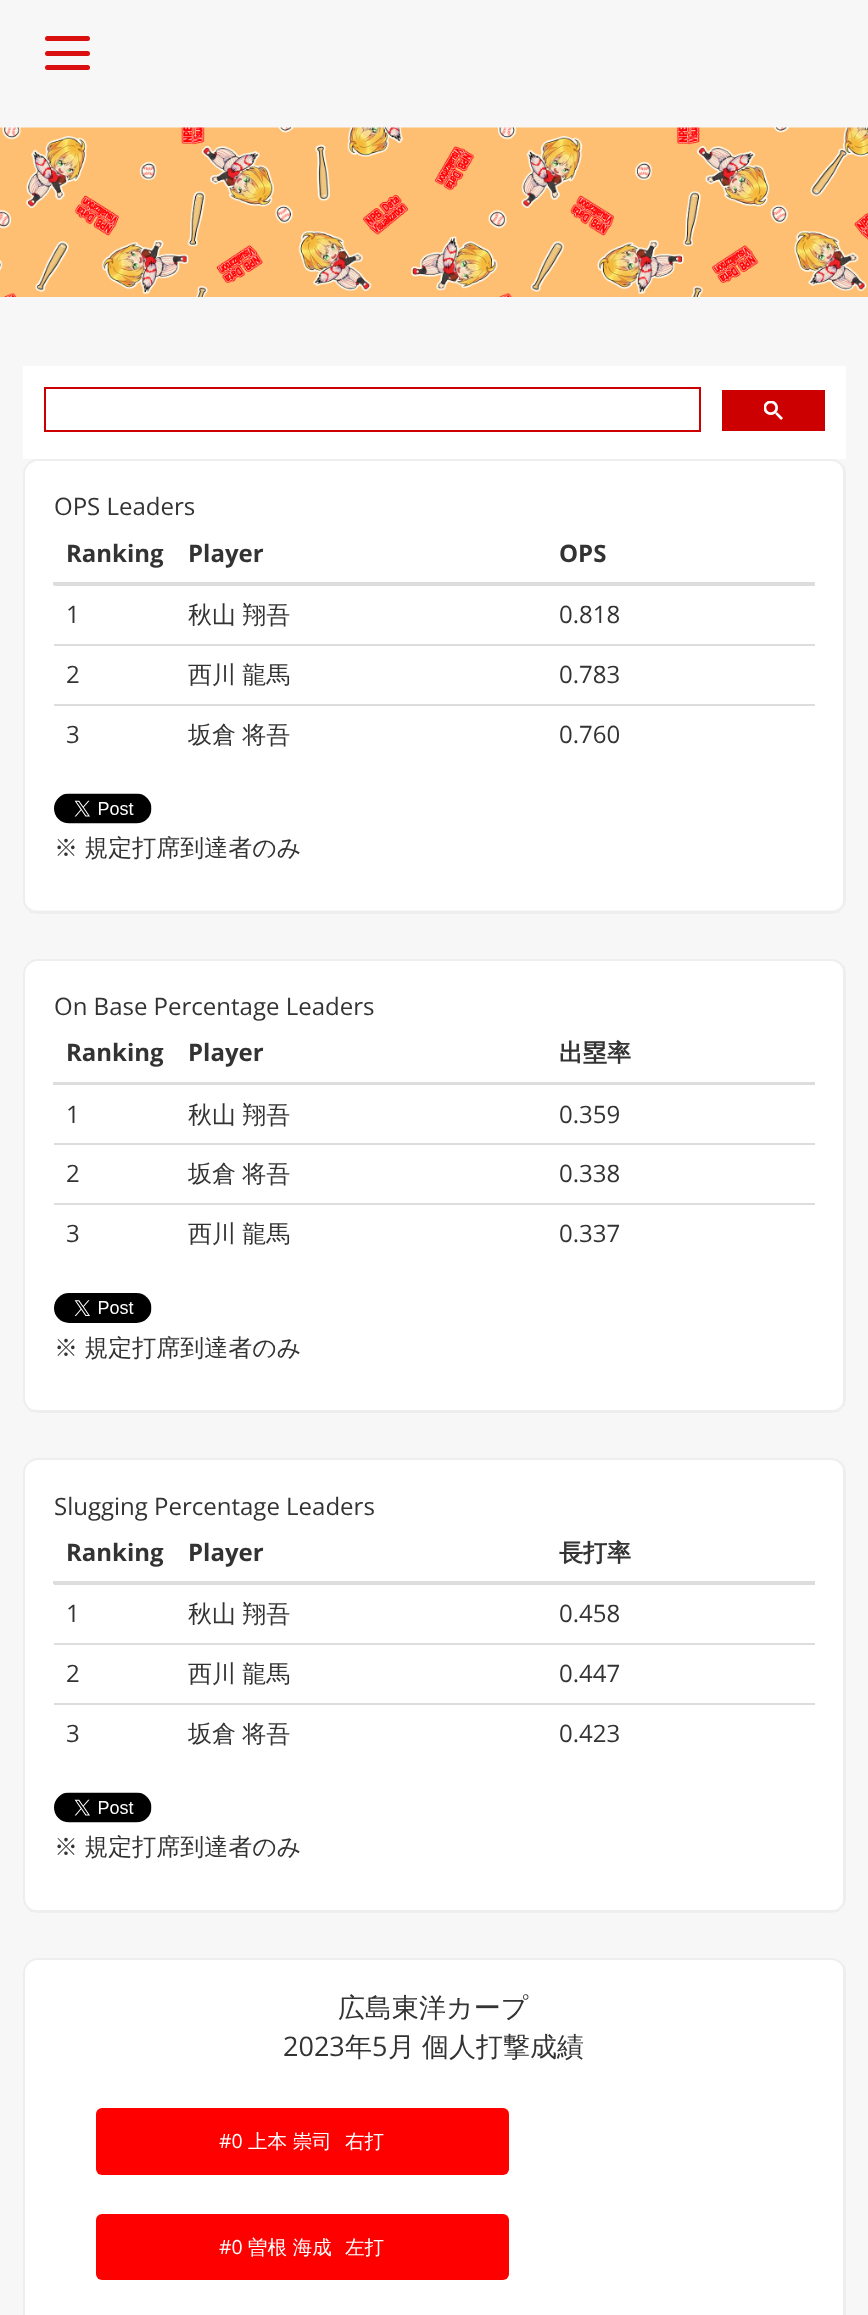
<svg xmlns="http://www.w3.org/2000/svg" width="868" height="2315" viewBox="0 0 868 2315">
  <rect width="100%" height="100%" fill="#f7f7f7"/>
  <rect x="45" y="36" width="45" height="5" rx="2.5" fill="#da0f0f"/>
  <rect x="45" y="51" width="45" height="5" rx="2.5" fill="#da0f0f"/>
  <rect x="45" y="65" width="45" height="5" rx="2.5" fill="#da0f0f"/>
  <image x="0" y="127" width="868" height="170" href="img1.png"/>
  <rect x="23" y="366" width="823" height="93" fill="#ffffff"/>
  <rect x="45" y="388" width="655" height="43" fill="none" stroke="#cc0000" stroke-width="2"/>
  <rect x="722" y="390" width="103" height="41" fill="#cc0000"/>
  <image x="764" y="401" width="19" height="19" href="img2.png"/>
  <path d="M38 460H831C838 460 843 467 843 474V898C843 905 838 910 831 910H38C30 910 24 905 24 898V474C24 467 30 460 38 460Z" fill="#ffffff"/>
  <rect x="24" y="460" width="821" height="453" rx="14" fill="none" stroke="#eeeeee" stroke-width="2"/>
  <rect x="843" y="467" width="2" height="439" fill="#eeeeee"/>
  <rect x="30" y="911" width="809" height="2" fill="#eeeeee"/>
  <text x="54" y="515" font-family="Open Sans" font-size="24" fill="#333333">OPS Leaders</text>
  <text x="66" y="562" font-family="Open Sans" font-size="24" font-weight="bold" fill="#333333">Ranking</text>
  <text x="188" y="562" font-family="Open Sans" font-size="24" font-weight="bold" fill="#333333">Player</text>
  <rect x="53" y="582" width="762" height="3" fill="#dddddd"/>
  <text x="559" y="562" font-family="Open Sans" font-size="24" font-weight="bold" fill="#333333">OPS</text>
  <text x="66" y="623" font-family="Open Sans" font-size="24" fill="#333333">1</text>
  <text x="188" y="623" word-spacing="-1" font-family="WenQuanYi Zen Hei" font-size="24" font-weight="500" fill="#333333">秋山 翔吾</text>
  <rect x="54" y="585" width="761" height="1" fill="#dddddd"/>
  <text x="559" y="623" font-family="Open Sans" font-size="24" fill="#333333">0.818</text>
  <text x="66" y="683" font-family="Open Sans" font-size="24" fill="#333333">2</text>
  <text x="188" y="683" word-spacing="-1" font-family="WenQuanYi Zen Hei" font-size="24" font-weight="500" fill="#333333">西川 龍馬</text>
  <rect x="54" y="644" width="761" height="2" fill="#dddddd"/>
  <text x="559" y="683" font-family="Open Sans" font-size="24" fill="#333333">0.783</text>
  <text x="66" y="743" font-family="Open Sans" font-size="24" fill="#333333">3</text>
  <text x="188" y="743" word-spacing="-1" font-family="WenQuanYi Zen Hei" font-size="24" font-weight="500" fill="#333333">坂倉 将吾</text>
  <rect x="54" y="704" width="761" height="2" fill="#dddddd"/>
  <text x="559" y="743" font-family="Open Sans" font-size="24" fill="#333333">0.760</text>
  <image x="54" y="793" width="98" height="31" href="img3.png"/>
  <text x="54" y="856" word-spacing="-1" font-family="WenQuanYi Zen Hei" font-size="24" font-weight="500" fill="#333333">※ 規定打席到達者のみ</text>
  <path d="M38 960H831C838 960 843 966 843 974V1398C843 1405 838 1410 831 1410H38C30 1410 24 1405 24 1398V974C24 966 30 960 38 960Z" fill="#ffffff"/>
  <rect x="24" y="960" width="821" height="452" rx="14" fill="none" stroke="#eeeeee" stroke-width="2"/>
  <rect x="843" y="966" width="2" height="440" fill="#eeeeee"/>
  <rect x="30" y="1410" width="809" height="2" fill="#eeeeee"/>
  <text x="54" y="1015" font-family="Open Sans" font-size="24" fill="#333333">On Base Percentage Leaders</text>
  <text x="66" y="1061" font-family="Open Sans" font-size="24" font-weight="bold" fill="#333333">Ranking</text>
  <text x="188" y="1061" font-family="Open Sans" font-size="24" font-weight="bold" fill="#333333">Player</text>
  <rect x="53" y="1082" width="762" height="3" fill="#dddddd"/>
  <text x="559" y="1061" font-family="WenQuanYi Zen Hei" font-size="24" font-weight="bold" fill="#333333">出塁率</text>
  <text x="66" y="1123" font-family="Open Sans" font-size="24" fill="#333333">1</text>
  <text x="188" y="1123" word-spacing="-1" font-family="WenQuanYi Zen Hei" font-size="24" font-weight="500" fill="#333333">秋山 翔吾</text>
  <text x="559" y="1123" font-family="Open Sans" font-size="24" fill="#333333">0.359</text>
  <text x="66" y="1182" font-family="Open Sans" font-size="24" fill="#333333">2</text>
  <text x="188" y="1182" word-spacing="-1" font-family="WenQuanYi Zen Hei" font-size="24" font-weight="500" fill="#333333">坂倉 将吾</text>
  <rect x="54" y="1143" width="761" height="2" fill="#dddddd"/>
  <text x="559" y="1182" font-family="Open Sans" font-size="24" fill="#333333">0.338</text>
  <text x="66" y="1242" font-family="Open Sans" font-size="24" fill="#333333">3</text>
  <text x="188" y="1242" word-spacing="-1" font-family="WenQuanYi Zen Hei" font-size="24" font-weight="500" fill="#333333">西川 龍馬</text>
  <rect x="54" y="1203" width="761" height="2" fill="#dddddd"/>
  <text x="559" y="1242" font-family="Open Sans" font-size="24" fill="#333333">0.337</text>
  <image x="54" y="1293" width="98" height="30" href="img4.png"/>
  <text x="54" y="1356" word-spacing="-1" font-family="WenQuanYi Zen Hei" font-size="24" font-weight="500" fill="#333333">※ 規定打席到達者のみ</text>
  <path d="M38 1460H831C838 1460 843 1466 843 1473V1898C843 1904 838 1910 831 1910H38C30 1910 24 1904 24 1898V1473C24 1466 30 1460 38 1460Z" fill="#ffffff"/>
  <rect x="24" y="1459" width="821" height="453" rx="14" fill="none" stroke="#eeeeee" stroke-width="2"/>
  <rect x="843" y="1466" width="2" height="439" fill="#eeeeee"/>
  <rect x="30" y="1910" width="809" height="2" fill="#eeeeee"/>
  <text x="54" y="1515" font-family="Open Sans" font-size="24" fill="#333333">Slugging Percentage Leaders</text>
  <text x="66" y="1561" font-family="Open Sans" font-size="24" font-weight="bold" fill="#333333">Ranking</text>
  <text x="188" y="1561" font-family="Open Sans" font-size="24" font-weight="bold" fill="#333333">Player</text>
  <rect x="53" y="1581" width="762" height="3" fill="#dddddd"/>
  <text x="559" y="1561" font-family="WenQuanYi Zen Hei" font-size="24" font-weight="bold" fill="#333333">長打率</text>
  <text x="66" y="1622" font-family="Open Sans" font-size="24" fill="#333333">1</text>
  <text x="188" y="1622" word-spacing="-1" font-family="WenQuanYi Zen Hei" font-size="24" font-weight="500" fill="#333333">秋山 翔吾</text>
  <rect x="54" y="1584" width="761" height="1" fill="#dddddd"/>
  <text x="559" y="1622" font-family="Open Sans" font-size="24" fill="#333333">0.458</text>
  <text x="66" y="1682" font-family="Open Sans" font-size="24" fill="#333333">2</text>
  <text x="188" y="1682" word-spacing="-1" font-family="WenQuanYi Zen Hei" font-size="24" font-weight="500" fill="#333333">西川 龍馬</text>
  <rect x="54" y="1643" width="761" height="2" fill="#dddddd"/>
  <text x="559" y="1682" font-family="Open Sans" font-size="24" fill="#333333">0.447</text>
  <text x="66" y="1742" font-family="Open Sans" font-size="24" fill="#333333">3</text>
  <text x="188" y="1742" word-spacing="-1" font-family="WenQuanYi Zen Hei" font-size="24" font-weight="500" fill="#333333">坂倉 将吾</text>
  <rect x="54" y="1703" width="761" height="2" fill="#dddddd"/>
  <text x="559" y="1742" font-family="Open Sans" font-size="24" fill="#333333">0.423</text>
  <image x="54" y="1792" width="98" height="31" href="img3.png"/>
  <text x="54" y="1855" word-spacing="-1" font-family="WenQuanYi Zen Hei" font-size="24" font-weight="500" fill="#333333">※ 規定打席到達者のみ</text>
  <path d="M38 1959H831C838 1959 843 1965 843 1972V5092C843 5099 838 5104 831 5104H38C30 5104 24 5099 24 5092V1972C24 1965 30 1959 38 1959Z" fill="#ffffff"/>
  <rect x="24" y="1959" width="821" height="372" rx="14" fill="none" stroke="#eeeeee" stroke-width="2"/>
  <rect x="843" y="1965" width="2" height="350" fill="#eeeeee"/>
  <text x="338" y="2017" font-family="WenQuanYi Zen Hei" font-size="27" font-weight="500" fill="#333333">広島東洋カープ</text>
  <text x="283" y="2056" font-family="Open Sans" font-size="27" fill="#333333">2023</text>
  <text x="345" y="2056" font-family="WenQuanYi Zen Hei" font-size="27" font-weight="500" fill="#333333">年</text>
  <text x="372" y="2056" font-family="Open Sans" font-size="27" fill="#333333">5</text>
  <text x="388" y="2056" word-spacing="-1" font-family="WenQuanYi Zen Hei" font-size="27" font-weight="500" fill="#333333">月 個人打撃成績</text>
  <rect x="96" y="2108" width="413" height="67" rx="6" fill="#ff0000"/>
  <text x="219" y="2148" font-family="Open Sans" font-size="19.5" fill="#ffffff">#0</text>
  <text x="248" y="2148" font-family="WenQuanYi Zen Hei" font-size="19.5" font-weight="500" fill="#ffffff">上本 崇司</text>
  <text x="345" y="2148" font-family="WenQuanYi Zen Hei" font-size="19.5" font-weight="500" fill="#ffffff">右打</text>
  <rect x="96" y="2214" width="413" height="66" rx="6" fill="#ff0000"/>
  <text x="219" y="2254" font-family="Open Sans" font-size="19.5" fill="#ffffff">#0</text>
  <text x="248" y="2254" font-family="WenQuanYi Zen Hei" font-size="19.5" font-weight="500" fill="#ffffff">曽根 海成</text>
  <text x="345" y="2254" font-family="WenQuanYi Zen Hei" font-size="19.5" font-weight="500" fill="#ffffff">左打</text>
</svg>
